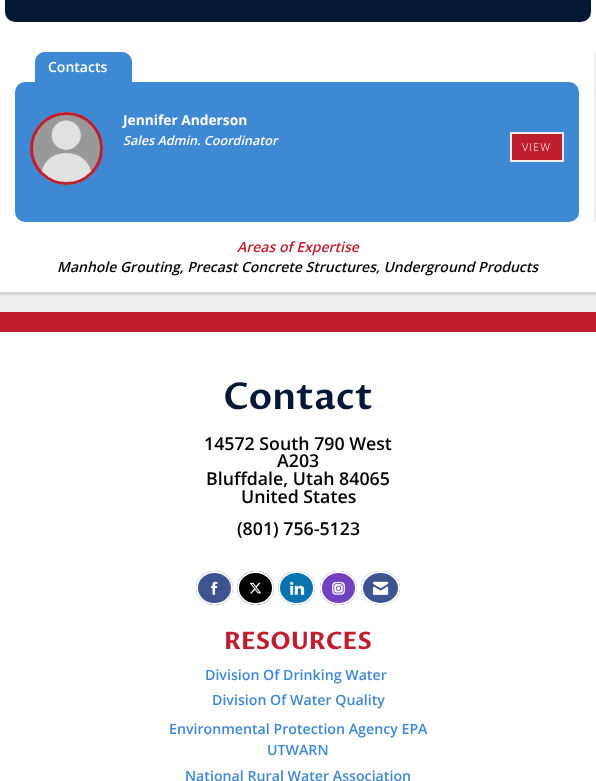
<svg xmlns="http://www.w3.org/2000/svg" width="596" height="781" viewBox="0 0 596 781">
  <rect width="100%" height="100%" fill="#eeeeee"/>
  <rect x="0" y="292" width="596" height="3" fill="#d4d4d4"/>
  <rect x="0" y="0" width="596" height="292" fill="#ffffff"/>
  <rect x="5" y="-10" width="586" height="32" rx="10" fill="#061934"/>
  <rect x="594" y="52" width="2" height="170" fill="#eeeeee"/>
  <path d="M45 52H122C127.5 52 132 56.5 132 62V82H35V62C35 56.5 39.5 52 45 52Z" fill="#3f88d3"/>
  <text x="48" y="72" font-family="Open Sans" font-size="14" font-weight="600" fill="#ffffff">Contacts</text>
  <rect x="15" y="82" width="564" height="140" rx="10" fill="#3f88d3"/>
  <image x="30" y="112" width="73" height="73" href="img1.png"/>
  <circle cx="66.5" cy="148.5" r="35" fill="none" stroke="#be1e2d" stroke-width="3"/>
  <text x="123" y="125" font-family="Open Sans" font-size="13.75" font-weight="bold" fill="#ffffff">Jennifer Anderson</text>
  <text x="123" y="145" font-family="Open Sans" font-size="12.6" font-weight="600" font-style="italic" fill="#ffffff">Sales Admin. Coordinator</text>
  <rect x="511" y="133" width="52" height="28" fill="#be1e2d" stroke="#eeeeee" stroke-width="2"/>
  <text x="522" y="151" font-family="Open Sans" font-size="11" font-weight="300" letter-spacing="1" fill="#ffffff">VIEW</text>
  <text x="237" y="252" font-family="Open Sans" font-size="14" font-weight="600" font-style="italic" fill="#be1e2d">Areas of Expertise</text>
  <text x="57" y="272" font-family="Open Sans" font-size="14" font-weight="600" font-style="italic" fill="#000000">Manhole Grouting, Precast Concrete Structures, Underground Products</text>
  <rect x="0" y="312" width="596" height="20" fill="#be1e2d"/>
  <rect x="0" y="332" width="596" height="449" fill="#ffffff"/>
  <text x="223" y="409" font-family="Proza Libre" font-size="37" font-weight="600" fill="#061934">Contact</text>
  <text x="204" y="450" font-family="Open Sans" font-size="17.75" font-weight="600" fill="#000000">14572 South 790 West</text>
  <text x="277" y="467" font-family="Open Sans" font-size="17.75" font-weight="600" fill="#000000">A203</text>
  <text x="206" y="485" font-family="Open Sans" font-size="17.75" font-weight="600" fill="#000000">Bluffdale, Utah 84065</text>
  <text x="241" y="503" font-family="Open Sans" font-size="17.75" font-weight="600" fill="#000000">United States</text>
  <text x="237" y="535" font-family="Open Sans" font-size="17.75" font-weight="600" fill="#000000">(801) 756-5123</text>
  <ellipse cx="214.5" cy="588" rx="18.5" ry="17" fill="#3e5491"/>
  <path d="M214.5 572C224 572 232 579 232 588C232 597 224 604 214.5 604C205 604 197 597 197 588C197 579 205 572 214.5 572Z" fill="none" stroke="#ffffff" stroke-width="2"/>
  <image x="211" y="581" width="7" height="14" href="img2.png"/>
  <ellipse cx="255.5" cy="588" rx="18.5" ry="17" fill="#000000"/>
  <path d="M255.5 572C265 572 273 579 273 588C273 597 265 604 255.5 604C246 604 238 597 238 588C238 579 246 572 255.5 572Z" fill="none" stroke="#ffffff" stroke-width="2"/>
  <image x="249" y="582" width="13" height="12" href="img3.png"/>
  <ellipse cx="296.5" cy="588" rx="18.5" ry="17" fill="#0972b1"/>
  <path d="M296.5 572C306 572 314 579 314 588C314 597 306 604 296.5 604C287 604 279 597 279 588C279 579 287 572 296.5 572Z" fill="none" stroke="#ffffff" stroke-width="2"/>
  <image x="290" y="581" width="15" height="14" href="img4.png"/>
  <ellipse cx="338.5" cy="588" rx="18.5" ry="17" fill="#7042c0"/>
  <path d="M338.5 572C348 572 356 579 356 588C356 597 348 604 338.5 604C329 604 321 597 321 588C321 579 329 572 338.5 572Z" fill="none" stroke="#ffffff" stroke-width="2"/>
  <image x="332" y="581" width="13" height="14" href="img5.png"/>
  <ellipse cx="380.5" cy="588" rx="19.5" ry="17" fill="#3e5491"/>
  <path d="M380.5 572C390.5 572 399 579 399 588C399 597 390.5 604 380.5 604C370.5 604 362 597 362 588C362 579 370.5 572 380.5 572Z" fill="none" stroke="#ffffff" stroke-width="2"/>
  <image x="373" y="581" width="16" height="14" href="img6.png"/>
  <text x="224" y="649" font-family="Proza Libre" font-size="24" font-weight="bold" fill="#be1e2d">RESOURCES</text>
  <text x="205" y="680" font-family="Open Sans" font-size="14.2" font-weight="600" fill="#3f88d3">Division Of Drinking Water</text>
  <text x="212" y="705" font-family="Open Sans" font-size="14.2" font-weight="600" fill="#3f88d3">Division Of Water Quality</text>
  <text x="169" y="734" font-family="Open Sans" font-size="14.2" font-weight="600" fill="#3f88d3">Environmental Protection Agency EPA</text>
  <text x="267" y="755" font-family="Open Sans" font-size="14.2" font-weight="600" fill="#3f88d3">UTWARN</text>
  <text x="185" y="781" font-family="Open Sans" font-size="14.2" font-weight="600" fill="#3f88d3">National Rural Water Association</text>
</svg>
